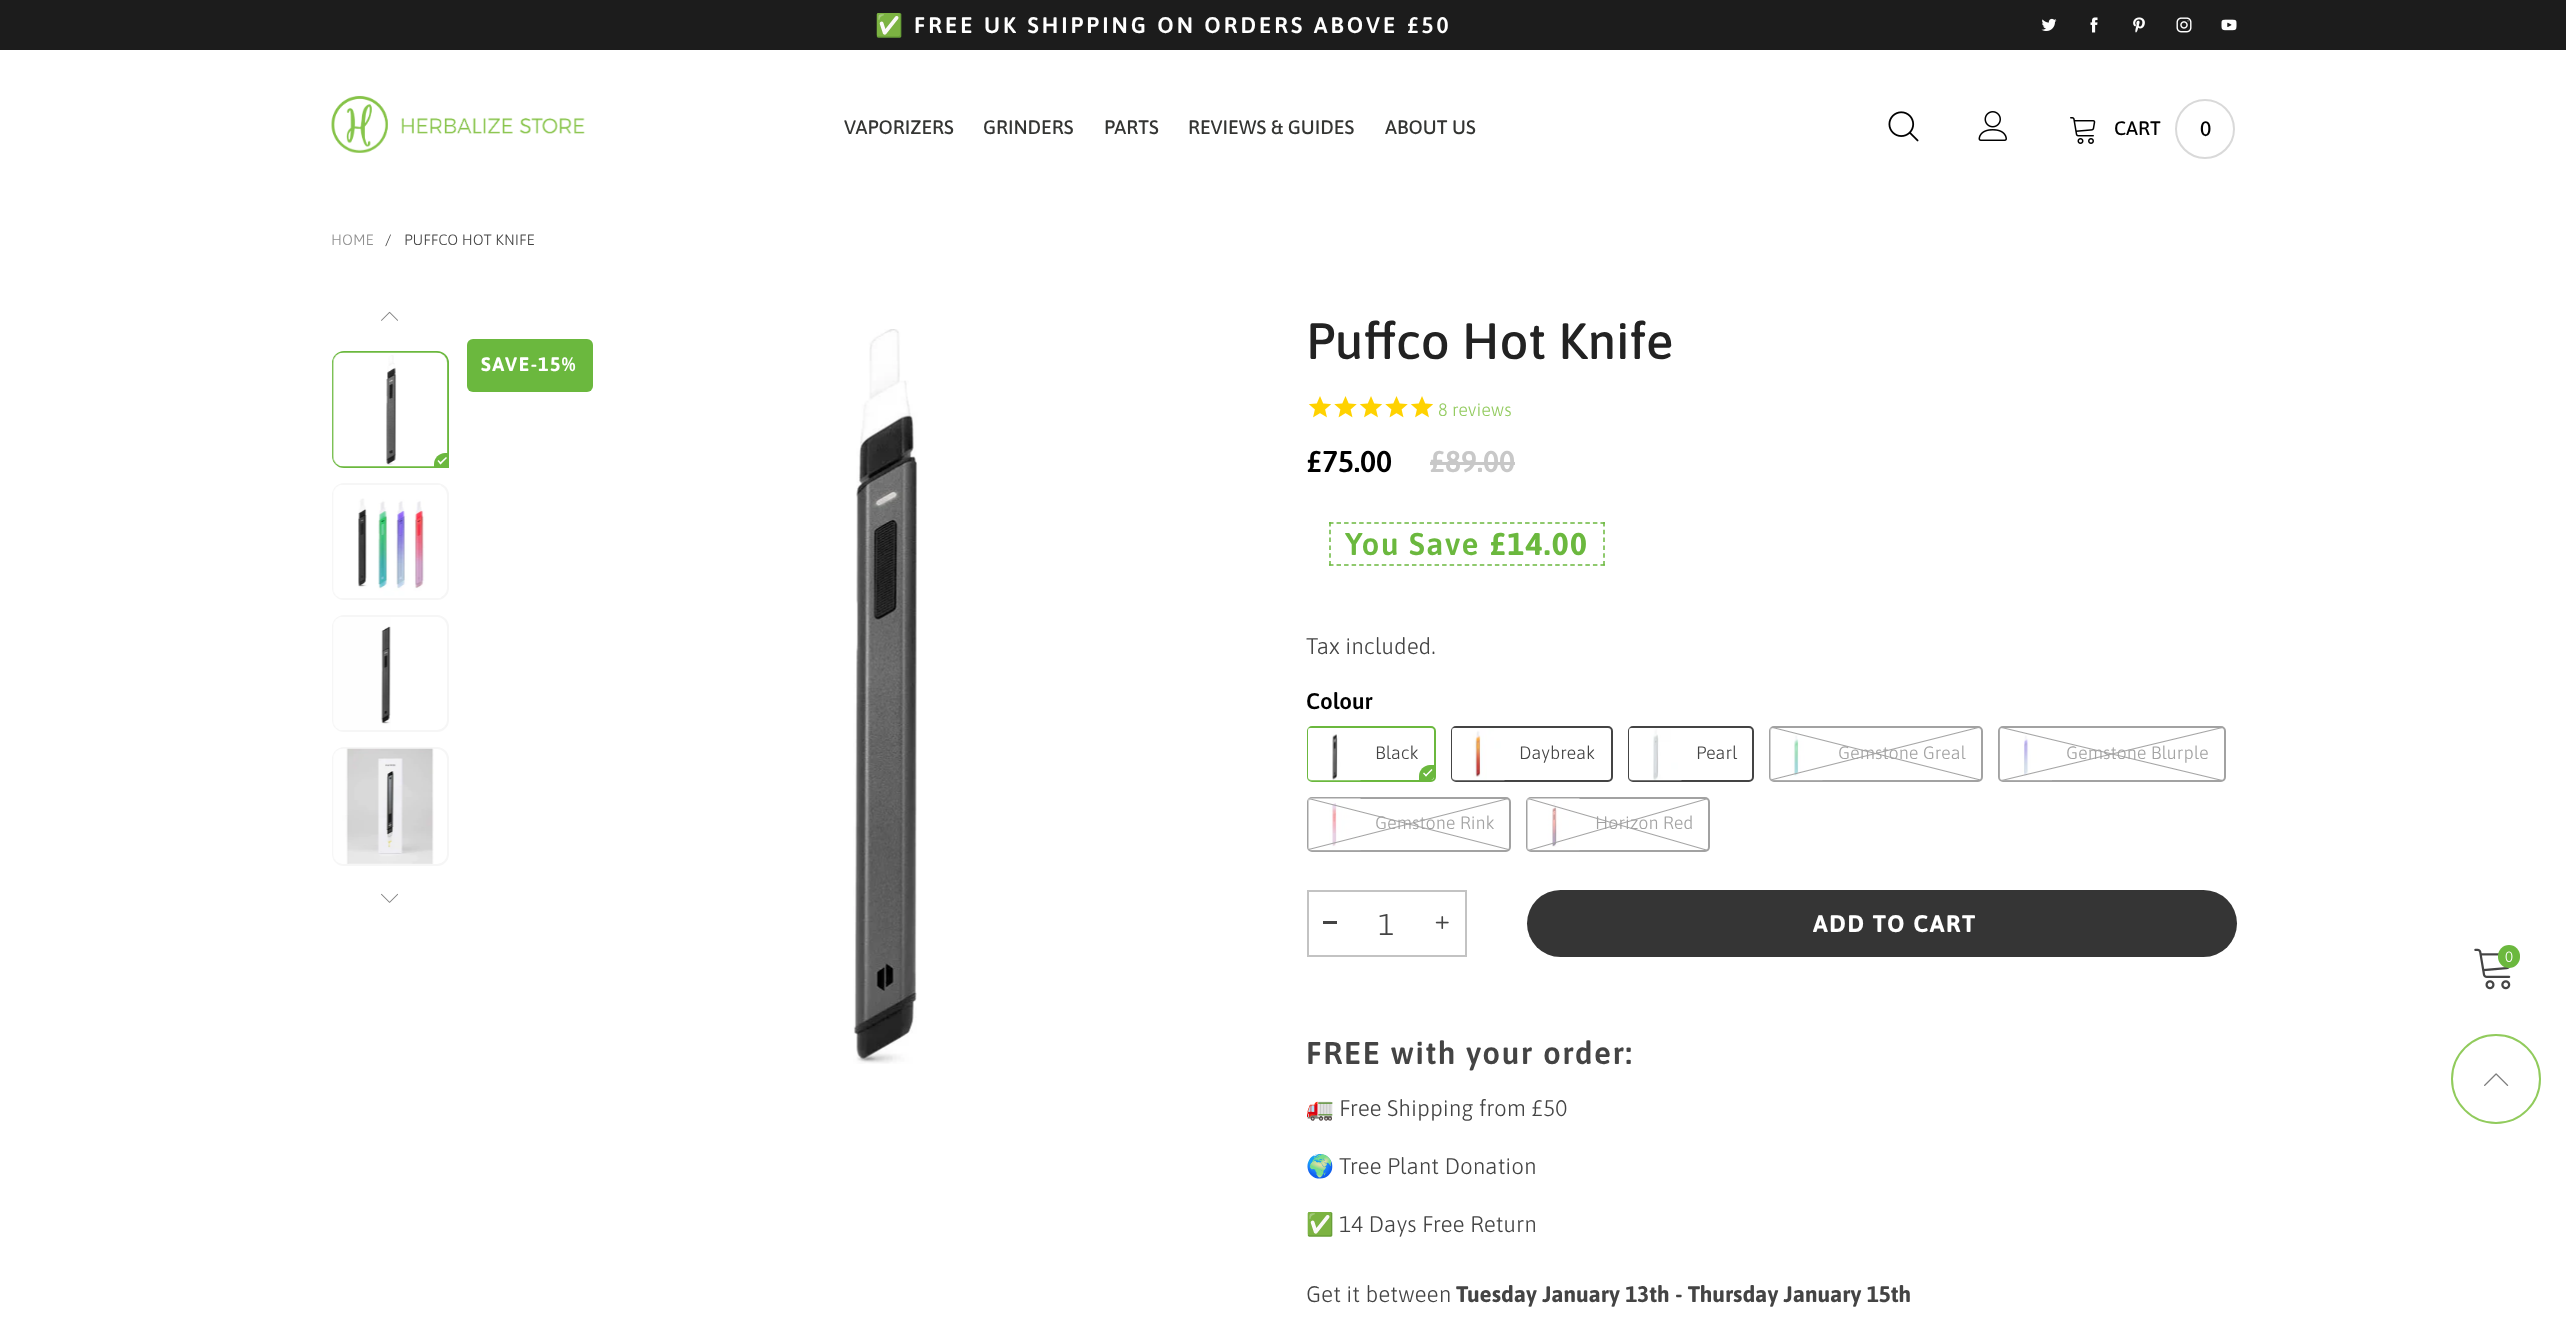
<svg xmlns="http://www.w3.org/2000/svg" width="2566" height="1318" viewBox="0 0 2566 1318">
  <defs>
    <clipPath id="clip1"><rect x="1307" y="669" width="930" height="206"/></clipPath>
    <linearGradient id="g1" gradientUnits="userSpaceOnUse" x1="1863" y1="803" x2="1888" y2="704"><stop offset="0" stop-color="#a2a2a2" stop-opacity="0"/><stop offset="0.49" stop-color="#a2a2a2" stop-opacity="0"/><stop offset="0.5" stop-color="#a2a2a2"/><stop offset="0.51" stop-color="#a2a2a2" stop-opacity="0"/><stop offset="1" stop-color="#a2a2a2" stop-opacity="0"/></linearGradient>
    <linearGradient id="g2" gradientUnits="userSpaceOnUse" x1="1888" y1="803" x2="1863" y2="704"><stop offset="0" stop-color="#a2a2a2" stop-opacity="0"/><stop offset="0.49" stop-color="#a2a2a2" stop-opacity="0"/><stop offset="0.5" stop-color="#a2a2a2"/><stop offset="0.51" stop-color="#a2a2a2" stop-opacity="0"/><stop offset="1" stop-color="#a2a2a2" stop-opacity="0"/></linearGradient>
    <linearGradient id="g3" gradientUnits="userSpaceOnUse" x1="2100" y1="804" x2="2124" y2="704"><stop offset="0" stop-color="#a2a2a2" stop-opacity="0"/><stop offset="0.49" stop-color="#a2a2a2" stop-opacity="0"/><stop offset="0.5" stop-color="#a2a2a2"/><stop offset="0.51" stop-color="#a2a2a2" stop-opacity="0"/><stop offset="1" stop-color="#a2a2a2" stop-opacity="0"/></linearGradient>
    <linearGradient id="g4" gradientUnits="userSpaceOnUse" x1="2124" y1="804" x2="2100" y2="704"><stop offset="0" stop-color="#a2a2a2" stop-opacity="0"/><stop offset="0.49" stop-color="#a2a2a2" stop-opacity="0"/><stop offset="0.5" stop-color="#a2a2a2"/><stop offset="0.51" stop-color="#a2a2a2" stop-opacity="0"/><stop offset="1" stop-color="#a2a2a2" stop-opacity="0"/></linearGradient>
    <linearGradient id="g5" gradientUnits="userSpaceOnUse" x1="1396" y1="873" x2="1421" y2="775"><stop offset="0" stop-color="#a2a2a2" stop-opacity="0"/><stop offset="0.49" stop-color="#a2a2a2" stop-opacity="0"/><stop offset="0.5" stop-color="#a2a2a2"/><stop offset="0.51" stop-color="#a2a2a2" stop-opacity="0"/><stop offset="1" stop-color="#a2a2a2" stop-opacity="0"/></linearGradient>
    <linearGradient id="g6" gradientUnits="userSpaceOnUse" x1="1421" y1="873" x2="1396" y2="775"><stop offset="0" stop-color="#a2a2a2" stop-opacity="0"/><stop offset="0.49" stop-color="#a2a2a2" stop-opacity="0"/><stop offset="0.5" stop-color="#a2a2a2"/><stop offset="0.51" stop-color="#a2a2a2" stop-opacity="0"/><stop offset="1" stop-color="#a2a2a2" stop-opacity="0"/></linearGradient>
    <linearGradient id="g7" gradientUnits="userSpaceOnUse" x1="1604" y1="873" x2="1632" y2="776"><stop offset="0" stop-color="#a2a2a2" stop-opacity="0"/><stop offset="0.49" stop-color="#a2a2a2" stop-opacity="0"/><stop offset="0.5" stop-color="#a2a2a2"/><stop offset="0.51" stop-color="#a2a2a2" stop-opacity="0"/><stop offset="1" stop-color="#a2a2a2" stop-opacity="0"/></linearGradient>
    <linearGradient id="g8" gradientUnits="userSpaceOnUse" x1="1632" y1="873" x2="1604" y2="776"><stop offset="0" stop-color="#a2a2a2" stop-opacity="0"/><stop offset="0.49" stop-color="#a2a2a2" stop-opacity="0"/><stop offset="0.5" stop-color="#a2a2a2"/><stop offset="0.51" stop-color="#a2a2a2" stop-opacity="0"/><stop offset="1" stop-color="#a2a2a2" stop-opacity="0"/></linearGradient>
  </defs>
  <rect width="100%" height="100%" fill="#ffffff"/>
  <rect x="0" y="0" width="2566" height="50" fill="#1c1c1c"/>
  <text x="875" y="33" font-family="Noto Color Emoji" font-size="22.5" font-weight="bold" letter-spacing="3" fill="#ffffff">✅</text>
  <text x="914" y="33" font-family="Asap" font-size="22.5" font-weight="600" letter-spacing="3" fill="#ffffff">FREE UK SHIPPING ON ORDERS ABOVE £50</text>
  <image x="2041" y="18" width="16" height="13" href="img1.png"/>
  <image x="2090" y="17" width="8" height="16" href="img2.png"/>
  <image x="2133" y="17" width="12" height="16" href="img3.png"/>
  <image x="2176" y="17" width="16" height="16" href="img4.png"/>
  <image x="2221" y="19" width="16" height="12" href="img5.png"/>
  <image x="331" y="95" width="254" height="58" href="img6.png"/>
  <text x="844" y="134" font-family="Asap" font-size="19.5" font-weight="500" fill="#343533">VAPORIZERS</text>
  <text x="983" y="134" font-family="Asap" font-size="19.5" font-weight="500" fill="#343533">GRINDERS</text>
  <text x="1104" y="134" font-family="Asap" font-size="19.5" font-weight="500" fill="#343533">PARTS</text>
  <text x="1188" y="134" font-family="Asap" font-size="19.5" font-weight="500" fill="#343533">REVIEWS &amp; GUIDES</text>
  <text x="1385" y="134" font-family="Asap" font-size="19.5" font-weight="500" fill="#343533">ABOUT US</text>
  <image x="1888" y="111" width="31" height="31" href="img7.png"/>
  <image x="1978" y="111" width="29" height="30" href="img8.png"/>
  <image x="2070" y="117" width="26" height="27" href="img9.png"/>
  <text x="2114" y="135" font-family="Asap" font-size="19.5" font-weight="500" fill="#000000">CART</text>
  <circle cx="2205" cy="129" r="29" fill="none" stroke="#d9d9d9" stroke-width="2"/>
  <text x="2200" y="136" font-family="Asap" font-size="21" font-weight="500" fill="#000000">0</text>
  <text x="331" y="245" font-family="Asap" font-size="15" font-weight="300" fill="#8f8f8f">HOME</text>
  <text x="385" y="245" font-family="Asap" font-size="15" font-weight="300" fill="#444444">/</text>
  <text x="404" y="245" font-family="Asap" font-size="15" font-weight="300" fill="#444444">PUFFCO HOT KNIFE</text>
  <image x="381" y="311" width="17" height="10" href="img10.png"/>
  <rect x="333" y="352" width="115" height="115" rx="11" fill="none" stroke="#6bb83e" stroke-width="2"/>
  <image x="332" y="352" width="116" height="115" href="img11.png"/>
  <path d="M445 453H449V468H434V464C434 458 439 453 445 453Z" fill="#6bb83e"/>
  <path d="M439.5 463L446 457L447 458L440.5 464.5Z" fill="#ffffff"/>
  <path d="M437.5 461L438.5 460L441.5 463L440.5 464.5Z" fill="#ffffff"/>
  <rect x="333" y="484" width="115" height="115" rx="11" fill="none" stroke="#f6f6f6" stroke-width="2"/>
  <image x="333" y="485" width="108" height="113" href="img12.png"/>
  <rect x="333" y="616" width="115" height="115" rx="11" fill="none" stroke="#f6f6f6" stroke-width="2"/>
  <image x="333" y="617" width="58" height="113" href="img13.png"/>
  <rect x="333" y="748" width="115" height="117" rx="11" fill="none" stroke="#f6f6f6" stroke-width="2"/>
  <image x="333" y="748" width="101" height="116" href="img14.png"/>
  <image x="381" y="893" width="17" height="10" href="img15.png"/>
  <rect x="467" y="339" width="126" height="53" rx="6" fill="#6bb83e"/>
  <text x="481" y="371" font-family="Asap" font-size="19.5" font-weight="bold" letter-spacing="1.5" fill="#ffffff">SAVE-</text>
  <text x="538" y="371" font-family="Asap" font-size="19.5" font-weight="bold" letter-spacing="1.5" fill="#ffffff">15%</text>
  <image x="853" y="329" width="65" height="735" href="img16.png"/>
  <text x="1306" y="359" font-family="Asap" font-size="51" font-weight="500" fill="#222222">Puffco Hot Knife</text>
  <image x="1308" y="396" width="24" height="22" href="img17.png"/>
  <image x="1334" y="396" width="23" height="22" href="img18.png"/>
  <image x="1359" y="396" width="24" height="22" href="img17.png"/>
  <image x="1385" y="396" width="23" height="22" href="img18.png"/>
  <image x="1410" y="396" width="24" height="22" href="img17.png"/>
  <text x="1438" y="416" font-family="Asap" font-size="18" font-weight="300" fill="#93cb5f">8 reviews</text>
  <text x="1306" y="472" font-family="Asap" font-size="30" font-weight="600" fill="#000000">£75.00</text>
  <text x="1429" y="472" font-family="Asap" font-size="30" font-weight="600" fill="#c8c8c8">£89.00</text>
  <rect x="1430" y="462" width="85" height="3" fill="#c8c8c8"/>
  <path d="M1329 523H1605" fill="none" stroke="#6bb83e" stroke-width="1.5" stroke-dasharray="4.5 3.04"/>
  <path d="M1604 522V565.5" fill="none" stroke="#6bb83e" stroke-width="1.5" stroke-dasharray="4.5 3.3"/>
  <path d="M1329 565H1605" fill="none" stroke="#6bb83e" stroke-width="1.5" stroke-dasharray="4.5 3.04"/>
  <path d="M1330 522V565.5" fill="none" stroke="#6bb83e" stroke-width="1.5" stroke-dasharray="4.5 3.3"/>
  <text x="1345" y="555" font-family="Asap" font-size="31.5" font-weight="600" letter-spacing="1.5" fill="#6bb83e">You Save</text>
  <text x="1489" y="555" font-family="Asap" font-size="31.5" font-weight="bold" letter-spacing="1.5" fill="#6bb83e">£14.00</text>
  <text x="1306" y="654" font-family="Asap" font-size="22.5" font-weight="300" fill="#444444">Tax included.</text>
  <g clip-path="url(#clip1)">
    <text x="1306" y="709" font-family="Asap" font-size="22.5" font-weight="600" fill="#000000">Colour</text>
  </g>
  <rect x="1308" y="727" width="127" height="54" rx="4" fill="none" stroke="#6bb83e" stroke-width="2"/>
  <image x="1308" y="728" width="53" height="53" href="img19.png"/>
  <text x="1375" y="759" font-family="Asap" font-size="18" font-weight="300" fill="#444444">Black</text>
  <path d="M1430 765H1434V777C1434 778.5 1432.5 780 1431 780H1419V776C1419 770 1424 765 1430 765Z" fill="#6bb83e"/>
  <path d="M1425 775.5L1431.5 769L1432.5 770L1426 776.5Z" fill="#ffffff"/>
  <path d="M1423 773.5L1424 772.5L1427 775.5L1426 776.5Z" fill="#ffffff"/>
  <rect x="1452" y="727" width="160" height="54" rx="4" fill="none" stroke="#444444" stroke-width="2"/>
  <image x="1452" y="728" width="53" height="53" href="img20.png"/>
  <text x="1519" y="759" font-family="Asap" font-size="18" font-weight="300" fill="#444444">Daybreak</text>
  <rect x="1629" y="727" width="124" height="54" rx="4" fill="none" stroke="#444444" stroke-width="2"/>
  <image x="1629" y="728" width="53" height="53" href="img21.png"/>
  <text x="1696" y="759" font-family="Asap" font-size="18" font-weight="300" fill="#444444">Pearl</text>
  <rect x="1770" y="727" width="212" height="54" rx="4" fill="none" stroke="#a2a2a2" stroke-width="2"/>
  <image x="1770" y="728" width="53" height="53" href="img22.png"/>
  <rect x="1770" y="728" width="212" height="52" rx="3" fill="url(#g1)"/>
  <rect x="1770" y="728" width="212" height="52" rx="3" fill="url(#g2)"/>
  <text x="1838" y="759" font-family="Asap" font-size="18" font-weight="300" fill="#a2a2a2">Gemstone Greal</text>
  <rect x="1999" y="727" width="226" height="54" rx="4" fill="none" stroke="#a2a2a2" stroke-width="2"/>
  <image x="1999" y="728" width="53" height="53" href="img23.png"/>
  <rect x="2002" y="728" width="220" height="52" fill="url(#g3)"/>
  <rect x="2002" y="728" width="220" height="52" fill="url(#g4)"/>
  <text x="2066" y="759" font-family="Asap" font-size="18" font-weight="300" fill="#a2a2a2">Gemstone Blurple</text>
  <rect x="1308" y="798" width="202" height="53" rx="4" fill="none" stroke="#a2a2a2" stroke-width="2"/>
  <image x="1308" y="798" width="53" height="53" href="img24.png"/>
  <rect x="1308" y="798" width="201" height="53" rx="3" fill="url(#g5)"/>
  <rect x="1308" y="798" width="201" height="53" rx="3" fill="url(#g6)"/>
  <text x="1375" y="829" font-family="Asap" font-size="18" font-weight="300" fill="#a2a2a2">Gemstone Rink</text>
  <rect x="1527" y="798" width="182" height="53" rx="4" fill="none" stroke="#a2a2a2" stroke-width="2"/>
  <image x="1527" y="798" width="53" height="53" href="img25.png"/>
  <rect x="1527" y="798" width="182" height="53" rx="3" fill="url(#g7)"/>
  <rect x="1527" y="798" width="182" height="53" rx="3" fill="url(#g8)"/>
  <text x="1595" y="829" font-family="Asap" font-size="18" font-weight="300" fill="#a2a2a2">Horizon Red</text>
  <rect x="1308" y="891" width="158" height="65" fill="none" stroke="#c3c3c3" stroke-width="2"/>
  <rect x="1323" y="921" width="14" height="3" fill="#444444"/>
  <text x="1378" y="935" font-family="Asap" font-size="30" font-weight="300" fill="#444444">1</text>
  <image x="1435" y="916" width="14" height="13" href="img26.png"/>
  <rect x="1527" y="890" width="710" height="67" rx="33.5" fill="#353535"/>
  <text x="1813" y="932" font-family="Asap" font-size="24" font-weight="bold" letter-spacing="1.5" fill="#ffffff">ADD TO CART</text>
  <text x="1306" y="1064" font-family="Asap" font-size="31.5" font-weight="600" letter-spacing="1.5" fill="#444444">FREE with your order:</text>
  <text x="1306" y="1116" font-family="Noto Color Emoji" font-size="22.5" fill="#444444">🚛</text>
  <text x="1339" y="1116" font-family="Asap" font-size="22.5" font-weight="300" fill="#444444">Free Shipping from £50</text>
  <text x="1306" y="1174" font-family="Noto Color Emoji" font-size="22.5" fill="#444444">🌍</text>
  <text x="1339" y="1174" font-family="Asap" font-size="22.5" font-weight="300" fill="#444444">Tree Plant Donation</text>
  <text x="1306" y="1232" font-family="Noto Color Emoji" font-size="22.5" fill="#444444">✅</text>
  <text x="1339" y="1232" font-family="Asap" font-size="22.5" font-weight="300" fill="#444444">14 Days Free Return</text>
  <text x="1306" y="1302" font-family="Asap" font-size="22.5" font-weight="300" fill="#444444">Get it between</text>
  <text x="1456" y="1302" font-family="Asap" font-size="22.5" font-weight="bold" fill="#444444">Tuesday January 13th - Thursday January 15th</text>
  <image x="2474" y="948" width="37" height="42" href="img27.png"/>
  <rect x="2498" y="945" width="22" height="23" rx="11" fill="#6bb83e"/>
  <text x="2505" y="962" font-family="Asap" font-size="15" font-weight="300" fill="#ffffff">0</text>
  <circle cx="2496" cy="1079" r="44" fill="none" stroke="#91cb5c" stroke-width="2"/>
  <image x="2484" y="1073" width="25" height="13" href="img28.png"/>
</svg>
